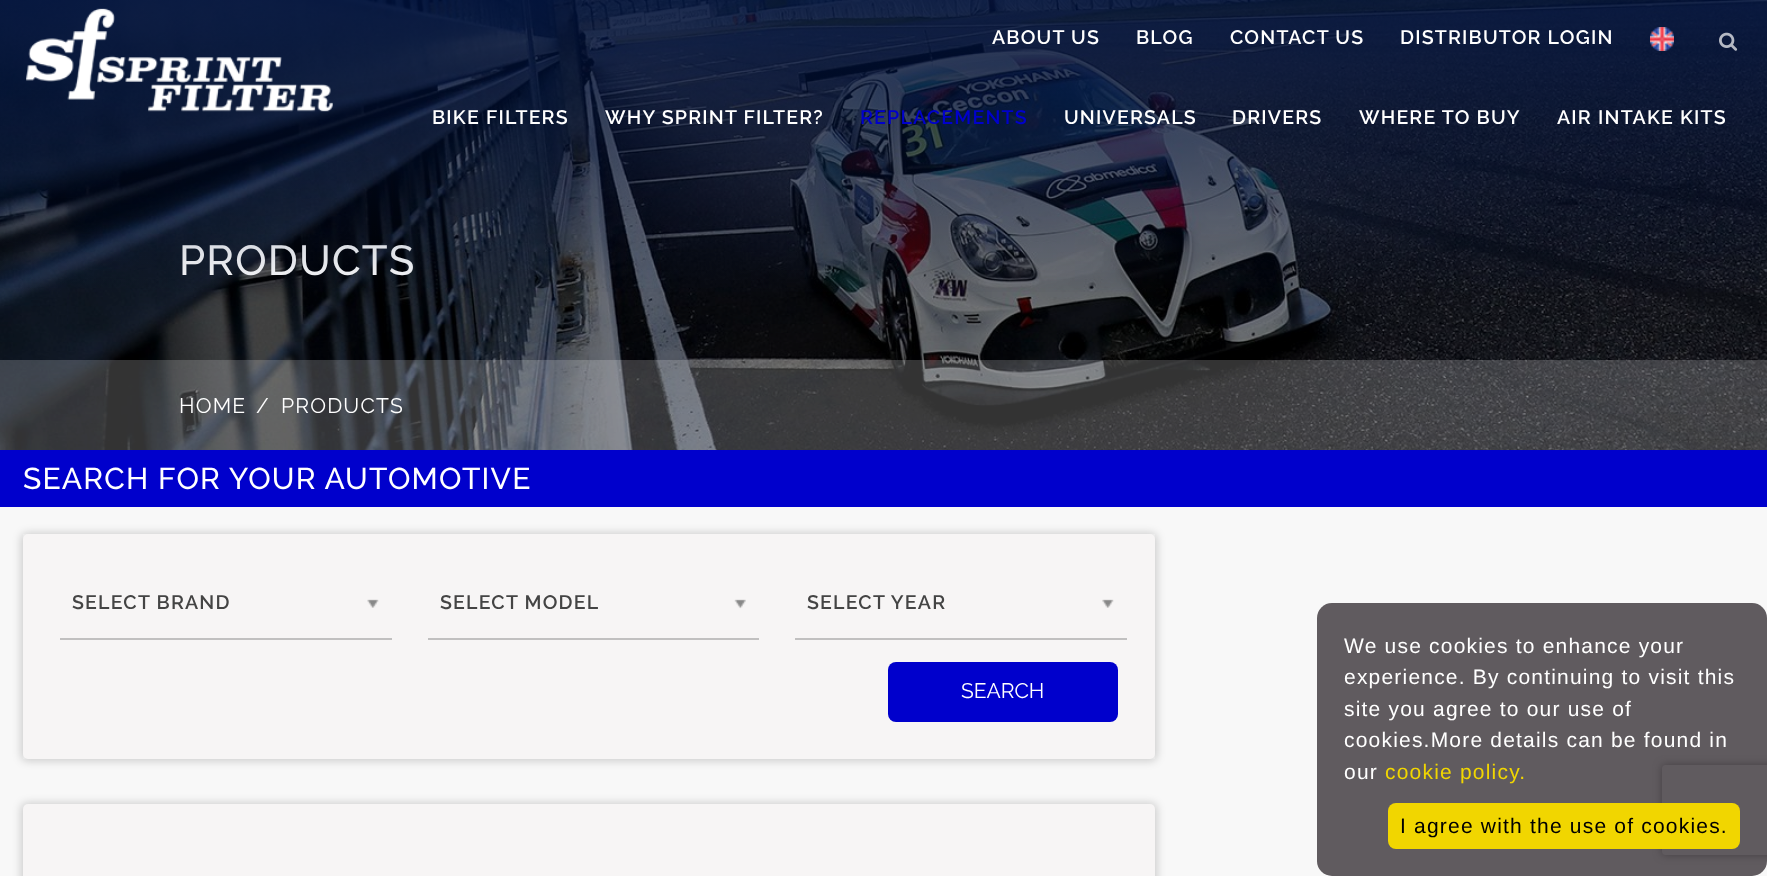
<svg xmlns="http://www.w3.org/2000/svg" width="1767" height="876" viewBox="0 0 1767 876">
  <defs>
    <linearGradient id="g1" gradientUnits="userSpaceOnUse" x1="884" y1="0" x2="884" y2="300"><stop offset="0" stop-color="#001340" stop-opacity="0.8"/><stop offset="1" stop-color="#001340" stop-opacity="0"/></linearGradient>
    <filter id="blur1" x="-50%" y="-200%" width="200%" height="500%"><feGaussianBlur stdDeviation="4.5"/></filter>
    <clipPath id="clip1"><path d="M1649 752H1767V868H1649ZM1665 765H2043C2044.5 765 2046 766.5 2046 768V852C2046 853.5 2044.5 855 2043 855H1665C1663.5 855 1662 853.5 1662 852V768C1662 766.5 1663.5 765 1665 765Z" clip-rule="evenodd"/></clipPath>
    <filter id="blur2" x="-50%" y="-200%" width="200%" height="500%"><feGaussianBlur stdDeviation="4"/></filter>
  </defs>
  <rect width="100%" height="100%" fill="#f8f8f8"/>
  <image x="0" y="0" width="1767" height="450" href="img4.png"/>
  <text x="179" y="275" font-family="Raleway" font-size="42" font-weight="500" letter-spacing="1.2" fill="#ffffff">PRODUCTS</text>
  <rect x="0" y="0" width="1767" height="292" fill="url(#g1)"/>
  <image x="26" y="8" width="307" height="104" href="img1.png"/>
  <text x="992" y="44" font-family="Raleway" font-size="19.5" font-weight="600" letter-spacing="1.2" fill="#ffffff">ABOUT US</text>
  <text x="1136" y="44" font-family="Raleway" font-size="19.5" font-weight="600" letter-spacing="1.2" fill="#ffffff">BLOG</text>
  <text x="1230" y="44" font-family="Raleway" font-size="19.5" font-weight="600" letter-spacing="1.2" fill="#ffffff">CONTACT US</text>
  <text x="1400" y="44" font-family="Raleway" font-size="19.5" font-weight="600" letter-spacing="1.2" fill="#ffffff">DISTRIBUTOR LOGIN</text>
  <image x="1650" y="27" width="24" height="24" href="img2.png"/>
  <image x="1719" y="32" width="19" height="19" href="img3.png"/>
  <text x="432" y="124" font-family="Raleway" font-size="19.5" font-weight="600" letter-spacing="1.2" fill="#ffffff">BIKE FILTERS</text>
  <text x="605" y="124" font-family="Raleway" font-size="19.5" font-weight="600" letter-spacing="1.2" fill="#ffffff">WHY SPRINT FILTER?</text>
  <text x="860" y="124" font-family="Raleway" font-size="19.5" font-weight="600" letter-spacing="1.2" fill="#0000cc">REPLACEMENTS</text>
  <text x="1064" y="124" font-family="Raleway" font-size="19.5" font-weight="600" letter-spacing="1.2" fill="#ffffff">UNIVERSALS</text>
  <text x="1232" y="124" font-family="Raleway" font-size="19.5" font-weight="600" letter-spacing="1.2" fill="#ffffff">DRIVERS</text>
  <text x="1359" y="124" font-family="Raleway" font-size="19.5" font-weight="600" letter-spacing="1.2" fill="#ffffff">WHERE TO BUY</text>
  <text x="1557" y="124" font-family="Raleway" font-size="19.5" font-weight="600" letter-spacing="1.2" fill="#ffffff">AIR INTAKE KITS</text>
  <rect x="0" y="360" width="1767" height="90" fill="#ffffff" fill-opacity="0.2"/>
  <text x="179" y="413" font-family="Raleway" font-size="21" letter-spacing="1.2" fill="#ffffff">HOME</text>
  <text x="256" y="413" font-family="Raleway" font-size="21" letter-spacing="1.2" fill="#ffffff">/</text>
  <text x="281" y="413" font-family="Raleway" font-size="21" letter-spacing="1.2" fill="#ffffff">PRODUCTS</text>
  <rect x="0" y="450" width="1767" height="57" fill="#0000cc"/>
  <text x="23" y="489" font-family="Raleway" font-size="30" font-weight="500" letter-spacing="1.2" fill="#ffffff">SEARCH FOR YOUR AUTOMOTIVE</text>
  <rect x="23" y="534" width="1132" height="225" fill="#ffffff"/>
  <rect x="21" y="533" width="1136" height="228" rx="6" fill="#000000" fill-opacity="0.18" filter="url(#blur1)"/>
  <rect x="23" y="534" width="1132" height="225" rx="5" fill="#f7f5f5"/>
  <rect x="60" y="638" width="332" height="2" fill="#c1c0c0"/>
  <text x="72" y="609" font-family="Raleway" font-size="19.5" font-weight="600" letter-spacing="1.2" fill="#444444">SELECT BRAND</text>
  <image x="367" y="599" width="12" height="9" href="img5.png"/>
  <rect x="428" y="638" width="331" height="2" fill="#c1c0c0"/>
  <text x="440" y="609" font-family="Raleway" font-size="19.5" font-weight="600" letter-spacing="1.2" fill="#444444">SELECT MODEL</text>
  <image x="734" y="599" width="12" height="10" href="img6.png"/>
  <rect x="795" y="638" width="332" height="2" fill="#c1c0c0"/>
  <text x="807" y="609" font-family="Raleway" font-size="19.5" font-weight="600" letter-spacing="1.2" fill="#444444">SELECT YEAR</text>
  <image x="1102" y="599" width="12" height="9" href="img7.png"/>
  <rect x="888" y="662" width="230" height="60" rx="8" fill="#0000cc"/>
  <text x="961" y="698" font-family="Raleway" font-size="21" fill="#ffffff">SEARCH</text>
  <rect x="21" y="803" width="1136" height="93" rx="6" fill="#000000" fill-opacity="0.18" filter="url(#blur1)"/>
  <rect x="23" y="804" width="1132" height="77" rx="5" fill="#f7f5f5"/>
  <g clip-path="url(#clip1)">
    <rect x="1662" y="765" width="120" height="90" rx="3" fill="#808080" filter="url(#blur2)"/>
  </g>
  <rect x="1317" y="603" width="450" height="273" rx="15" fill="#312b30" fill-opacity="0.77"/>
  <text x="1344" y="653" font-family="Liberation Sans" font-size="21" letter-spacing="1.2" fill="#ffffff">We use cookies to enhance your</text>
  <text x="1344" y="684" font-family="Liberation Sans" font-size="21" letter-spacing="1.2" fill="#ffffff">experience. By continuing to visit this</text>
  <text x="1344" y="716" font-family="Liberation Sans" font-size="21" letter-spacing="1.2" fill="#ffffff">site you agree to our use of</text>
  <text x="1344" y="747" font-family="Liberation Sans" font-size="21" letter-spacing="1.2" fill="#ffffff">cookies.More details can be found in</text>
  <text x="1344" y="779" font-family="Liberation Sans" font-size="21" letter-spacing="1.2" fill="#ffffff">our</text>
  <text x="1385" y="779" font-family="Liberation Sans" font-size="21" letter-spacing="1.2" fill="#f1d600">cookie policy.</text>
  <rect x="1388" y="803" width="352" height="46" rx="8" fill="#f1d600"/>
  <text x="1400" y="833" font-family="Liberation Sans" font-size="21" letter-spacing="1.2" fill="#000000">I agree with the use of cookies.</text>
</svg>
